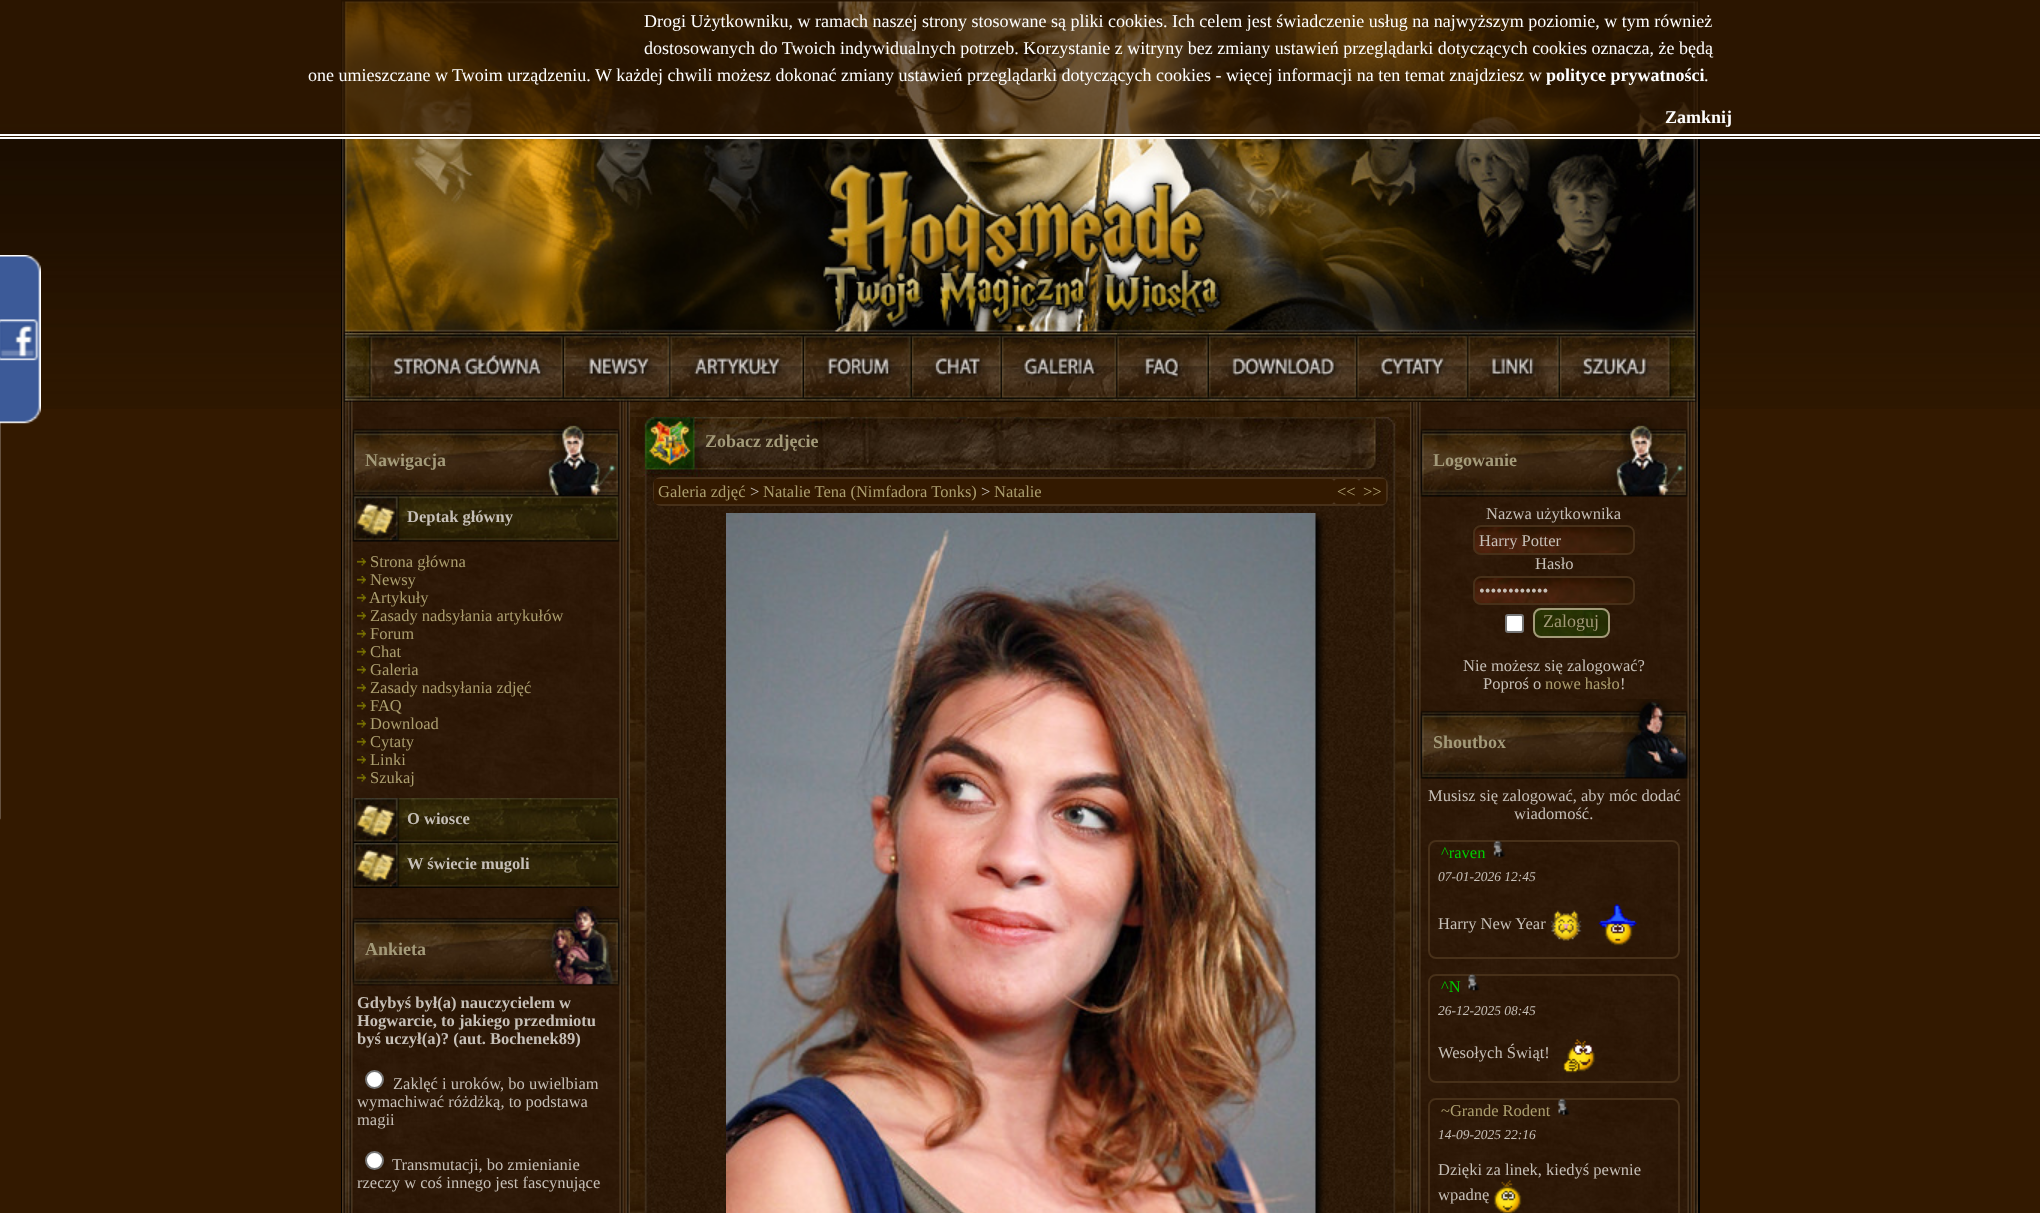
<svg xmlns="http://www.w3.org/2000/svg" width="2040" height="1213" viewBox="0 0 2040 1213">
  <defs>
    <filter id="blur1" x="-50%" y="-200%" width="200%" height="500%"><feGaussianBlur stdDeviation="3"/></filter>
    <clipPath id="clip1"><rect x="1479" y="531" width="150" height="18"/></clipPath>
  </defs>
  <rect width="100%" height="100%" fill="#331900"/>
  <image x="0" y="0" width="2040" height="409" href="img1.png"/>
  <rect x="342" y="1" width="1357" height="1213" fill="none" stroke="#000000" stroke-width="2"/>
  <image x="342" y="1" width="1356" height="332" href="img3.png"/>
  <rect x="0" y="0" width="2040" height="134" fill="#331900" fill-opacity="0.7"/>
  <text x="644" y="27" font-family="Liberation Serif" font-size="18" fill="#ffffff">Drogi Użytkowniku, w ramach naszej strony stosowane są pliki cookies. Ich celem jest świadczenie usług na najwyższym poziomie, w tym również</text>
  <text x="644" y="54" font-family="Liberation Serif" font-size="18" fill="#ffffff">dostosowanych do Twoich indywidualnych potrzeb. Korzystanie z witryny bez zmiany ustawień przeglądarki dotyczących cookies oznacza, że będą</text>
  <text x="308" y="81" font-family="Liberation Serif" font-size="18" fill="#ffffff">one umieszczane w Twoim urządzeniu. W każdej chwili możesz dokonać zmiany ustawień przeglądarki dotyczących cookies - więcej informacji na ten temat znajdziesz w</text>
  <text x="1546" y="81" font-family="Liberation Serif" font-size="18" font-weight="bold" fill="#ffffff">polityce prywatności</text>
  <text x="1704" y="81" font-family="Liberation Serif" font-size="18" fill="#ffffff">.</text>
  <text x="1665" y="123" font-family="Liberation Serif" font-size="18" font-weight="bold" fill="#ffffff">Zamknij</text>
  <rect x="0" y="136" width="2040" height="1" fill="#331900"/>
  <rect x="0" y="134" width="2040" height="2" fill="#ffffff"/>
  <rect x="0" y="137" width="2040" height="2" fill="#ffffff"/>
  <image x="0" y="255" width="41" height="565" href="img2.png"/>
  <image x="342" y="333" width="222" height="69" href="img4.png"/>
  <image x="564" y="333" width="107" height="69" href="img5.png"/>
  <image x="670" y="333" width="134" height="69" href="img6.png"/>
  <image x="804" y="333" width="108" height="69" href="img7.png"/>
  <image x="912" y="333" width="90" height="69" href="img8.png"/>
  <image x="1002" y="333" width="116" height="69" href="img9.png"/>
  <image x="1117" y="333" width="92" height="69" href="img10.png"/>
  <image x="1209" y="333" width="149" height="69" href="img11.png"/>
  <image x="1357" y="333" width="112" height="69" href="img12.png"/>
  <image x="1468" y="333" width="92" height="69" href="img13.png"/>
  <image x="1560" y="333" width="138" height="69" href="img14.png"/>
  <image x="342" y="402" width="288" height="811" href="img15.png"/>
  <image x="342" y="417" width="288" height="80" href="img16.png"/>
  <text x="365" y="466" font-family="Liberation Serif" font-size="18" font-weight="bold" fill="#a39a79">Nawigacja</text>
  <image x="343" y="496" width="287" height="46" href="img17.png"/>
  <text x="407" y="522" font-family="Liberation Serif" font-size="16.5" font-weight="bold" fill="#c6bfb7">Deptak główny</text>
  <image x="357" y="558" width="9" height="8" href="img18.png"/>
  <text x="370" y="567" font-family="Liberation Serif" font-size="16.5" fill="#ab9e6e">Strona główna</text>
  <image x="357" y="576" width="9" height="8" href="img19.png"/>
  <text x="370" y="585" font-family="Liberation Serif" font-size="16.5" fill="#ab9e6e">Newsy</text>
  <image x="357" y="594" width="9" height="8" href="img20.png"/>
  <text x="369" y="603" font-family="Liberation Serif" font-size="16.5" fill="#ab9e6e">Artykuły</text>
  <image x="357" y="612" width="9" height="8" href="img21.png"/>
  <text x="370" y="621" font-family="Liberation Serif" font-size="16.5" fill="#ab9e6e">Zasady nadsyłania artykułów</text>
  <image x="357" y="630" width="9" height="8" href="img22.png"/>
  <text x="370" y="639" font-family="Liberation Serif" font-size="16.5" fill="#ab9e6e">Forum</text>
  <image x="357" y="648" width="9" height="8" href="img23.png"/>
  <text x="370" y="657" font-family="Liberation Serif" font-size="16.5" fill="#ab9e6e">Chat</text>
  <image x="357" y="666" width="9" height="8" href="img24.png"/>
  <text x="370" y="675" font-family="Liberation Serif" font-size="16.5" fill="#ab9e6e">Galeria</text>
  <image x="357" y="684" width="9" height="8" href="img25.png"/>
  <text x="370" y="693" font-family="Liberation Serif" font-size="16.5" fill="#ab9e6e">Zasady nadsyłania zdjęć</text>
  <image x="357" y="702" width="9" height="8" href="img26.png"/>
  <text x="370" y="711" font-family="Liberation Serif" font-size="16.5" fill="#ab9e6e">FAQ</text>
  <image x="357" y="720" width="9" height="8" href="img27.png"/>
  <text x="370" y="729" font-family="Liberation Serif" font-size="16.5" fill="#ab9e6e">Download</text>
  <image x="357" y="738" width="9" height="8" href="img28.png"/>
  <text x="370" y="747" font-family="Liberation Serif" font-size="16.5" fill="#ab9e6e">Cytaty</text>
  <image x="357" y="756" width="9" height="8" href="img29.png"/>
  <text x="370" y="765" font-family="Liberation Serif" font-size="16.5" fill="#ab9e6e">Linki</text>
  <image x="357" y="774" width="9" height="8" href="img30.png"/>
  <text x="370" y="783" font-family="Liberation Serif" font-size="16.5" fill="#ab9e6e">Szukaj</text>
  <image x="343" y="798" width="287" height="45" href="img31.png"/>
  <text x="407" y="824" font-family="Liberation Serif" font-size="16.5" font-weight="bold" fill="#c6bfb7">O wiosce</text>
  <image x="342" y="843" width="288" height="45" href="img32.png"/>
  <text x="407" y="869" font-family="Liberation Serif" font-size="16.5" font-weight="bold" fill="#c6bfb7">W świecie mugoli</text>
  <image x="342" y="906" width="288" height="80" href="img33.png"/>
  <text x="365" y="955" font-family="Liberation Serif" font-size="18" font-weight="bold" fill="#a39a79">Ankieta</text>
  <text x="357" y="1008" font-family="Liberation Serif" font-size="16.5" font-weight="bold" fill="#c6bfb7">Gdybyś był(a) nauczycielem w</text>
  <text x="357" y="1026" font-family="Liberation Serif" font-size="16.5" font-weight="bold" fill="#c6bfb7">Hogwarcie, to jakiego przedmiotu</text>
  <text x="357" y="1044" font-family="Liberation Serif" font-size="16.5" font-weight="bold" fill="#c6bfb7">byś uczył(a)? (aut. Bochenek89)</text>
  <circle cx="374.5" cy="1079.5" r="8.5" fill="#ffffff" stroke="#767676" stroke-width="2"/>
  <text x="393" y="1089" font-family="Liberation Serif" font-size="16.5" fill="#c6bfb7">Zaklęć i uroków, bo uwielbiam</text>
  <text x="357" y="1107" font-family="Liberation Serif" font-size="16.5" fill="#c6bfb7">wymachiwać różdżką, to podstawa</text>
  <text x="357" y="1125" font-family="Liberation Serif" font-size="16.5" fill="#c6bfb7">magii</text>
  <circle cx="374.5" cy="1160.5" r="8.5" fill="#ffffff" stroke="#767676" stroke-width="2"/>
  <text x="392" y="1170" font-family="Liberation Serif" font-size="16.5" fill="#c6bfb7">Transmutacji, bo zmienianie</text>
  <text x="357" y="1188" font-family="Liberation Serif" font-size="16.5" fill="#c6bfb7">rzeczy w coś innego jest fascynujące</text>
  <image x="630" y="402" width="780" height="15" href="img34.png"/>
  <image x="630" y="417" width="780" height="60" href="img35.png"/>
  <text x="705" y="447" font-family="Liberation Serif" font-size="18" font-weight="bold" fill="#a39a79">Zobacz zdjęcie</text>
  <image x="630" y="477" width="780" height="736" href="img36.png"/>
  <rect x="654" y="478" width="733" height="27" rx="7" fill="#523c27" stroke="#473019" stroke-width="2"/>
  <rect x="654" y="479" width="680" height="25" rx="3" fill="#331900"/>
  <text x="658" y="497" font-family="Liberation Serif" font-size="16.5" fill="#ab9e6e">Galeria zdjęć</text>
  <text x="750" y="497" font-family="Liberation Serif" font-size="16.5" fill="#c6bfb7">&gt;</text>
  <text x="763" y="497" font-family="Liberation Serif" font-size="16.5" fill="#ab9e6e">Natalie Tena (Nimfadora Tonks)</text>
  <text x="981" y="497" font-family="Liberation Serif" font-size="16.5" fill="#c6bfb7">&gt;</text>
  <text x="994" y="497" font-family="Liberation Serif" font-size="16.5" fill="#ab9e6e">Natalie</text>
  <rect x="1334" y="479" width="25" height="25" rx="3" fill="#331900"/>
  <text x="1337" y="497" font-family="Liberation Serif" font-size="16.5" fill="#ab9e6e">&lt;&lt;</text>
  <rect x="1359" y="479" width="27" height="25" rx="3" fill="#331900"/>
  <text x="1363" y="497" font-family="Liberation Serif" font-size="16.5" fill="#ab9e6e">&gt;&gt;</text>
  <rect x="731" y="518" width="589" height="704" fill="#000000" filter="url(#blur1)"/>
  <image x="726" y="513" width="590" height="700" href="img37.png"/>
  <image x="1410" y="402" width="288" height="811" href="img38.png"/>
  <image x="1410" y="417" width="288" height="80" href="img39.png"/>
  <text x="1433" y="466" font-family="Liberation Serif" font-size="18" font-weight="bold" fill="#a39a79">Logowanie</text>
  <text x="1486" y="519" font-family="Liberation Serif" font-size="16.5" fill="#c6bfb7">Nazwa użytkownika</text>
  <image x="1473" y="525" width="162" height="30" href="img40.png"/>
  <rect x="1474" y="526" width="160" height="28" rx="7" fill="none" stroke="#473019" stroke-width="2"/>
  <g clip-path="url(#clip1)">
    <text x="1479" y="546" font-family="Liberation Serif" font-size="16.5" fill="#c6bfb7">Harry Potter</text>
  </g>
  <text x="1535" y="569" font-family="Liberation Serif" font-size="16.5" fill="#c6bfb7">Hasło</text>
  <image x="1473" y="576" width="162" height="29" href="img41.png"/>
  <rect x="1474" y="577" width="160" height="27" rx="7" fill="none" stroke="#473019" stroke-width="2"/>
  <text x="1479" y="596" font-family="Liberation Serif" font-size="16.5" fill="#c6bfb7">••••••••••••</text>
  <rect x="1506" y="615" width="17" height="17" rx="2" fill="#ffffff" stroke="#767676" stroke-width="2"/>
  <image x="1533" y="607" width="77" height="31" href="img42.png"/>
  <rect x="1534" y="609" width="75" height="28" rx="7" fill="none" stroke="#a39a79" stroke-width="2"/>
  <text x="1543" y="627" font-family="Liberation Serif" font-size="18" fill="#a39a79">Zaloguj</text>
  <text x="1463" y="671" font-family="Liberation Serif" font-size="16.5" fill="#c6bfb7">Nie możesz się zalogować?</text>
  <text x="1483" y="689" font-family="Liberation Serif" font-size="16.5" fill="#c6bfb7">Poproś o</text>
  <text x="1545" y="689" font-family="Liberation Serif" font-size="16.5" fill="#ab9e6e">nowe hasło</text>
  <text x="1620" y="689" font-family="Liberation Serif" font-size="16.5" fill="#c6bfb7">!</text>
  <image x="1410" y="699" width="288" height="80" href="img43.png"/>
  <text x="1433" y="748" font-family="Liberation Serif" font-size="18" font-weight="bold" fill="#a39a79">Shoutbox</text>
  <text x="1428" y="801" font-family="Liberation Serif" font-size="16.5" fill="#c6bfb7">Musisz się zalogować, aby móc dodać</text>
  <text x="1514" y="819" font-family="Liberation Serif" font-size="16.5" fill="#c6bfb7">wiadomość.</text>
  <rect x="1429" y="841" width="250" height="117" rx="7" fill="none" stroke="#473019" stroke-width="2"/>
  <text x="1441" y="858" font-family="Liberation Serif" font-size="16.5" fill="#00cc00">^raven</text>
  <image x="1493" y="840" width="13" height="18" href="img44.png"/>
  <text x="1438" y="881" font-family="Liberation Serif" font-size="13.5" font-style="italic" fill="#c6bfb7">07-01-2026 12:45</text>
  <text x="1438" y="929" font-family="Liberation Serif" font-size="16.5" fill="#c6bfb7">Harry New Year</text>
  <image x="1550" y="910" width="32" height="31" href="img45.png"/>
  <image x="1598" y="904" width="39" height="42" href="img46.png"/>
  <rect x="1429" y="975" width="250" height="107" rx="7" fill="none" stroke="#473019" stroke-width="2"/>
  <text x="1441" y="992" font-family="Liberation Serif" font-size="16.5" fill="#00cc00">^N</text>
  <image x="1467" y="973" width="13" height="19" href="img47.png"/>
  <text x="1438" y="1015" font-family="Liberation Serif" font-size="13.5" font-style="italic" fill="#c6bfb7">26-12-2025 08:45</text>
  <text x="1438" y="1058" font-family="Liberation Serif" font-size="16.5" fill="#c6bfb7">Wesołych Świąt!</text>
  <image x="1563" y="1039" width="32" height="34" href="img48.png"/>
  <rect x="1429" y="1099" width="250" height="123" rx="7" fill="none" stroke="#473019" stroke-width="2"/>
  <text x="1441" y="1116" font-family="Liberation Serif" font-size="16.5" fill="#ab9e6e">~Grande Rodent</text>
  <image x="1558" y="1098" width="12" height="18" href="img49.png"/>
  <text x="1438" y="1139" font-family="Liberation Serif" font-size="13.5" font-style="italic" fill="#c6bfb7">14-09-2025 22:16</text>
  <text x="1438" y="1175" font-family="Liberation Serif" font-size="16.5" fill="#c6bfb7">Dzięki za linek, kiedyś pewnie</text>
  <text x="1438" y="1200" font-family="Liberation Serif" font-size="16.5" fill="#c6bfb7">wpadnę</text>
  <image x="1493" y="1180" width="29" height="33" href="img50.png"/>
</svg>
